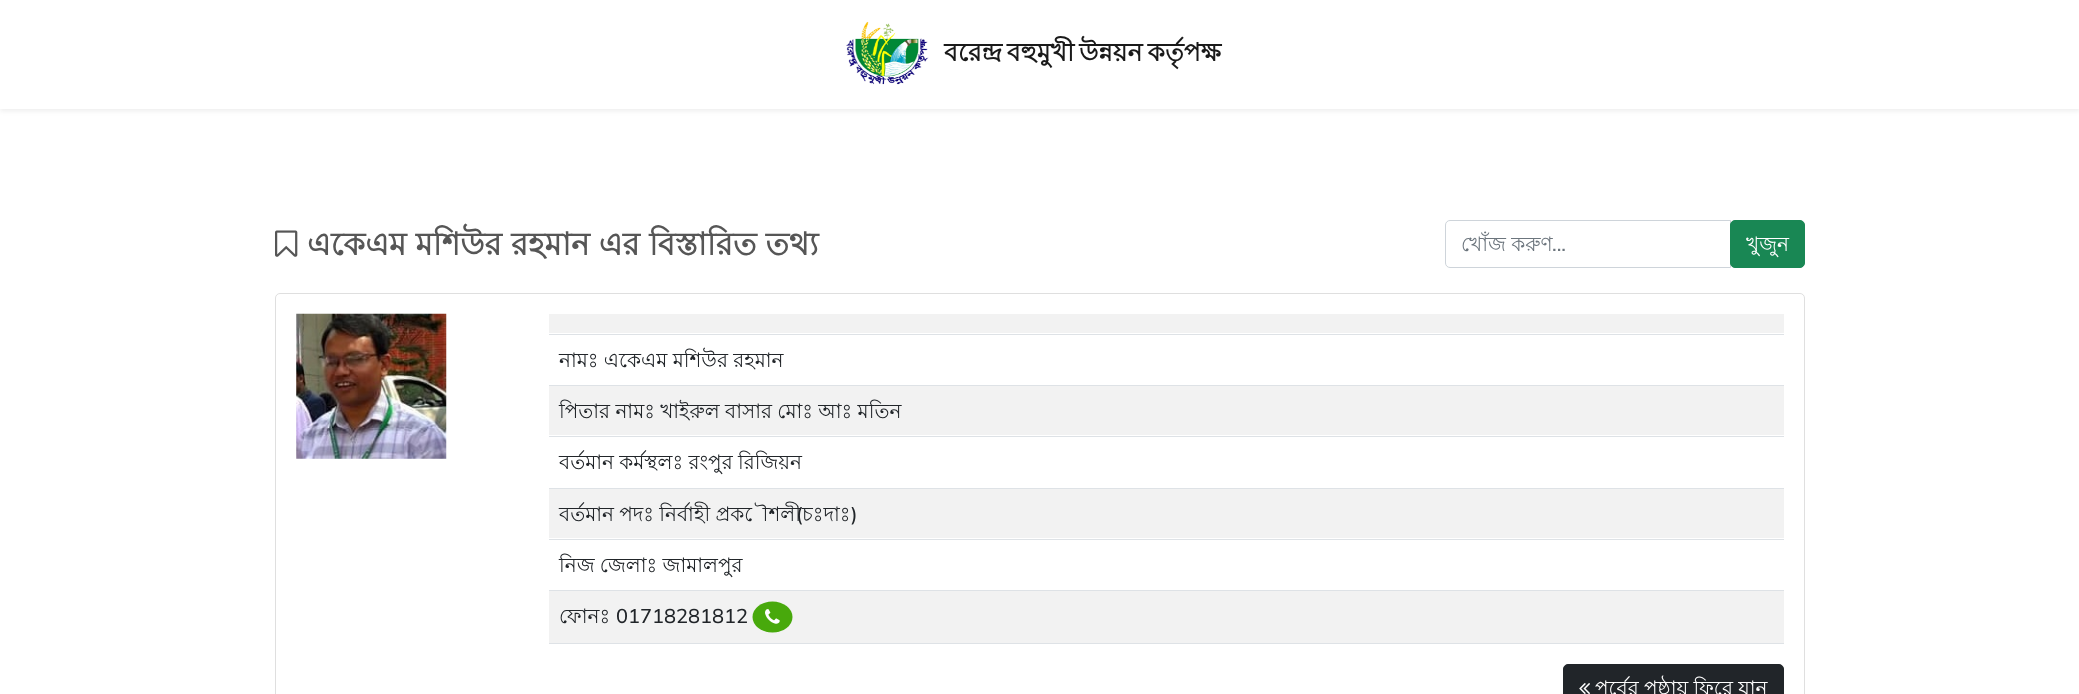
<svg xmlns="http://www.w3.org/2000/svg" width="2079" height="694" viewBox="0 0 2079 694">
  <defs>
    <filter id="blur1" x="-50%" y="-200%" width="200%" height="500%"><feGaussianBlur stdDeviation="2.5"/></filter>
    <clipPath id="clip1"><rect x="1461" y="229" width="235" height="34"/></clipPath>
  </defs>
  <rect width="100%" height="100%" fill="#ffffff"/>
  <rect x="0" y="3" width="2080" height="108" fill="#000000" fill-opacity="0.07" filter="url(#blur1)"/>
  <rect x="0" y="0" width="2079" height="109" fill="#ffffff"/>
  <image x="846" y="21" width="83" height="64" href="img1.png"/>
  <text x="944" y="61" word-spacing="-2" font-family="Lohit Bengali" font-size="25" font-weight="bold" fill="#1a1a1a">বরেন্দ্র বহুমুখী উন্নয়ন কর্তৃপক্ষ</text>
  <image x="275" y="230" width="23" height="27" href="img2.png"/>
  <text x="307" y="255" word-spacing="0.5" font-family="Lohit Bengali" font-size="31.25" font-weight="bold" fill="#565656">একেএম মশিউর রহমান এর বিস্তারিত তথ্য</text>
  <path d="M1450 220.5H1730.5V267.5H1450C1447.5 267.5 1445.5 265.5 1445.5 263V225C1445.5 222.5 1447.5 220.5 1450 220.5Z" fill="none" stroke="#ced4da"/>
  <g clip-path="url(#clip1)">
    <text x="1461" y="251" word-spacing="-0.25" font-family="Lohit Bengali" font-size="20" fill="#6c757d">খোঁজ করুণ</text>
  </g>
  <text x="1552" y="251" font-family="Mulish" font-size="20" font-weight="500" fill="#6c757d">...</text>
  <rect x="1730.5" y="220.5" width="74" height="47" rx="4.5" fill="#198754" stroke="#198754"/>
  <text x="1746" y="251" font-family="Lohit Bengali" font-size="20" fill="#ffffff">খুজুন</text>
  <rect x="275.5" y="293.5" width="1529" height="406" rx="4.5" fill="none" stroke="#dfdfdf"/>
  <image x="296" y="313" width="151" height="146" href="img3.png"/>
  <rect x="549" y="314" width="1235" height="19" fill="#f2f2f2"/>
  <rect x="549" y="334" width="1235" height="1" fill="#dee2e6"/>
  <rect x="549" y="385" width="1235" height="1" fill="#dee2e6"/>
  <text x="559" y="367" word-spacing="-0.25" font-family="Lohit Bengali" font-size="20" fill="#212529">নামঃ একেএম মশিউর রহমান</text>
  <rect x="549" y="386" width="1235" height="49" fill="#f2f2f2"/>
  <rect x="549" y="436" width="1235" height="1" fill="#dee2e6"/>
  <text x="559" y="418" word-spacing="-0.25" font-family="Lohit Bengali" font-size="20" fill="#212529">পিতার নামঃ খাইরুল বাসার মোঃ আঃ মতিন</text>
  <rect x="549" y="488" width="1235" height="1" fill="#dee2e6"/>
  <text x="559" y="469" word-spacing="-0.25" font-family="Lohit Bengali" font-size="20" fill="#212529">বর্তমান কর্মস্থলঃ রংপুর রিজিয়ন</text>
  <rect x="549" y="489" width="1235" height="49" fill="#f2f2f2"/>
  <rect x="549" y="539" width="1235" height="1" fill="#dee2e6"/>
  <text x="559" y="521" word-spacing="-0.25" font-family="Lohit Bengali" font-size="20" fill="#212529">বর্তমান পদঃ নির্বাহী প্রকৌশলী</text>
  <text x="796" y="521" font-family="Mulish" font-size="20" font-weight="500" fill="#212529">(</text>
  <text x="802" y="521" font-family="Lohit Bengali" font-size="20" fill="#212529">চঃদাঃ</text>
  <text x="851" y="521" font-family="Mulish" font-size="20" font-weight="500" fill="#212529">)</text>
  <rect x="549" y="590" width="1235" height="1" fill="#dee2e6"/>
  <text x="559" y="572" word-spacing="-0.25" font-family="Lohit Bengali" font-size="20" fill="#212529">নিজ জেলাঃ জামালপুর</text>
  <rect x="549" y="591" width="1235" height="52" fill="#f2f2f2"/>
  <rect x="549" y="643" width="1235" height="1" fill="#dee2e6"/>
  <text x="559" y="623" font-family="Lohit Bengali" font-size="20" fill="#212529">ফোনঃ</text>
  <text x="616" y="623" font-family="Mulish" font-size="20" font-weight="500" fill="#212529">01718281812</text>
  <ellipse cx="772.5" cy="617" rx="20" ry="15.5" fill="#48a90c"/>
  <image x="765" y="609" width="15" height="15" href="img4.png"/>
  <rect x="1563.5" y="664.5" width="220" height="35" rx="4.5" fill="#212529" stroke="#212529"/>
  <image x="1579" y="683" width="11" height="11" href="img5.png"/>
  <text x="1595" y="695" word-spacing="-0.25" font-family="Lohit Bengali" font-size="20" fill="#ffffff">পুর্বের পৃষ্ঠায় ফিরে যান</text>
</svg>
